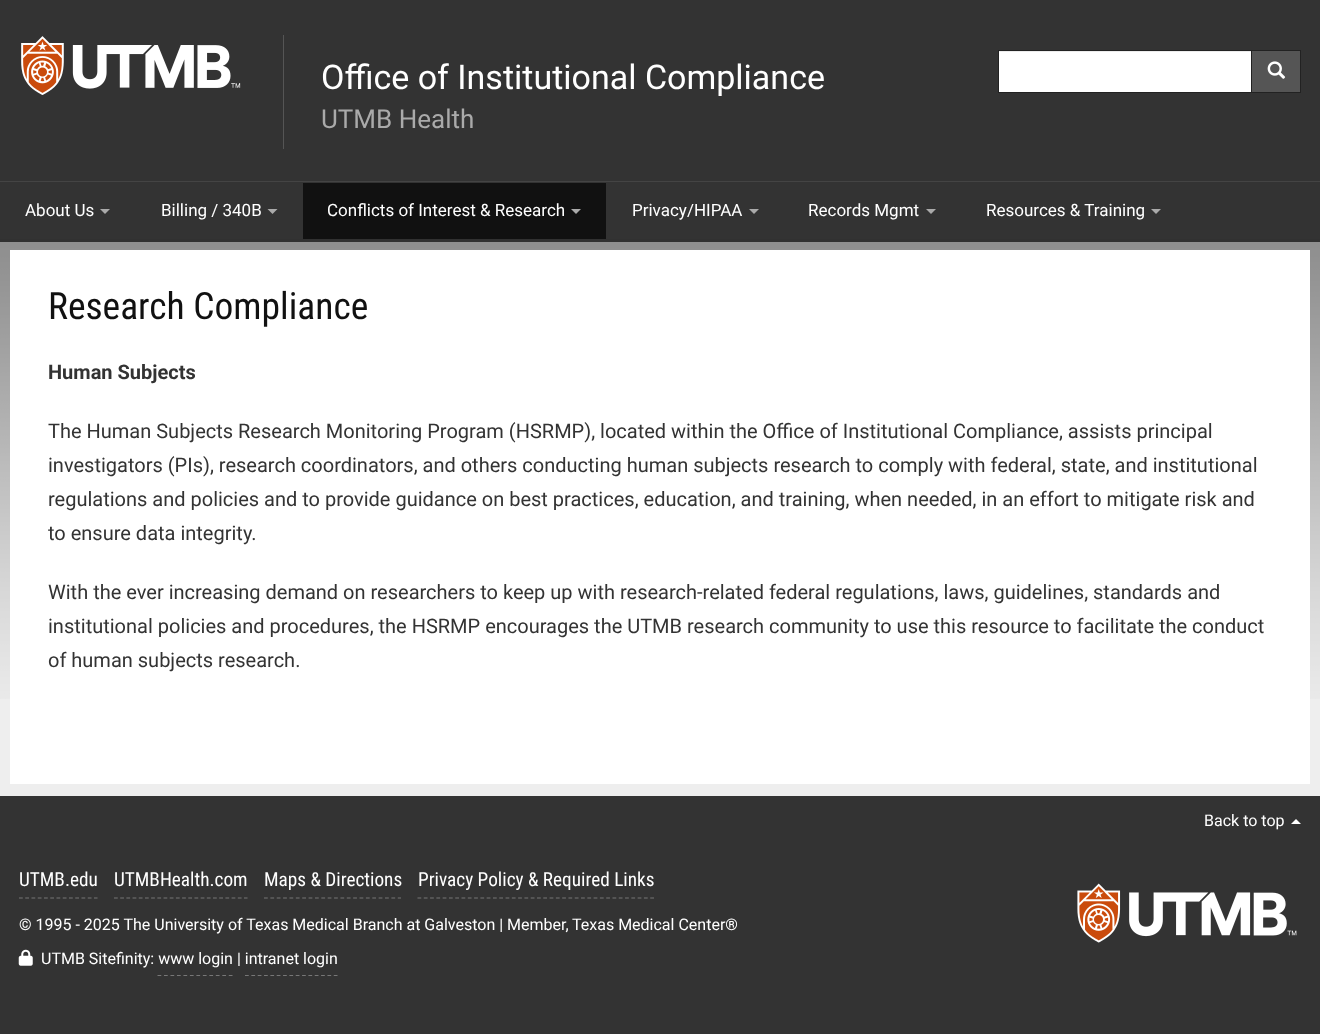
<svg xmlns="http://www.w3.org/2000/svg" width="1320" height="1034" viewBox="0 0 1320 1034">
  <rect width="100%" height="100%" fill="#eeeeee"/>
  <rect x="0" y="0" width="1320" height="181" fill="#333333"/>
  <image x="21" y="36" width="220" height="59" href="img1.png"/>
  <rect x="283" y="35" width="1" height="114" fill="#555555"/>
  <text x="321" y="89" font-family="Roboto" font-size="34" fill="#ffffff">Office of Institutional Compliance</text>
  <text x="321" y="128" font-family="Roboto" font-size="26" fill="#aaaaaa">UTMB Health</text>
  <rect x="999" y="52" width="252" height="40" fill="#ffffff"/>
  <rect x="999" y="51" width="252" height="1" fill="#ececec"/>
  <rect x="998.5" y="50.5" width="254" height="42" fill="none" stroke="#222222"/>
  <rect x="1251.5" y="50.5" width="49" height="42" fill="#555555" stroke="#222222"/>
  <image x="1267" y="61" width="19" height="18" href="img2.png"/>
  <image x="0" y="242" width="1320" height="457" href="img3.png"/>
  <rect x="10" y="250" width="1300" height="534" fill="#ffffff"/>
  <rect x="0" y="182" width="1320" height="57" fill="#333333"/>
  <rect x="0" y="181" width="1320" height="1" fill="#444444"/>
  <rect x="0" y="239" width="1320" height="3" fill="#313131"/>
  <text x="25" y="216" font-family="Roboto" font-size="17" fill="#ffffff">About Us</text>
  <path d="M100 209H110L105 214Z" fill="#aaaaaa"/>
  <text x="161" y="216" font-family="Roboto" font-size="17" fill="#ffffff">Billing / 340B</text>
  <path d="M267.5 209H277.5L272.5 214Z" fill="#aaaaaa"/>
  <rect x="303" y="183" width="303" height="56" fill="#111111"/>
  <text x="327" y="216" font-family="Roboto" font-size="17" fill="#ffffff">Conflicts of Interest &amp; Research</text>
  <path d="M571 209H581L576 214Z" fill="#aaaaaa"/>
  <text x="632" y="216" font-family="Roboto" font-size="17" fill="#ffffff">Privacy/HIPAA</text>
  <path d="M749 209H759L754 214Z" fill="#aaaaaa"/>
  <text x="808" y="216" font-family="Roboto" font-size="17" fill="#ffffff">Records Mgmt</text>
  <path d="M926 209H936L931 214Z" fill="#aaaaaa"/>
  <text x="986" y="216" font-family="Roboto" font-size="17" fill="#ffffff">Resources &amp; Training</text>
  <path d="M1151 209H1161L1156 214Z" fill="#aaaaaa"/>
  <text x="48" y="319" font-family="Roboto Condensed" font-size="37.5" fill="#111111">Research Compliance</text>
  <text x="48" y="379" font-family="Roboto" font-size="20" font-weight="bold" fill="#333333">Human Subjects</text>
  <text x="48" y="438" font-family="Roboto" font-size="20" fill="#333333">The Human Subjects Research Monitoring Program (HSRMP), located within the Office of Institutional Compliance, assists principal</text>
  <text x="48" y="472" font-family="Roboto" font-size="20" fill="#333333">investigators (PIs), research coordinators, and others conducting human subjects research to comply with federal, state, and institutional</text>
  <text x="48" y="506" font-family="Roboto" font-size="20" fill="#333333">regulations and policies and to provide guidance on best practices, education, and training, when needed, in an effort to mitigate risk and</text>
  <text x="48" y="540" font-family="Roboto" font-size="20" fill="#333333">to ensure data integrity.</text>
  <text x="48" y="599" font-family="Roboto" font-size="20" fill="#333333">With the ever increasing demand on researchers to keep up with research-related federal regulations, laws, guidelines, standards and</text>
  <text x="48" y="633" font-family="Roboto" font-size="20" fill="#333333">institutional policies and procedures, the HSRMP encourages the UTMB research community to use this resource to facilitate the conduct</text>
  <text x="48" y="667" font-family="Roboto" font-size="20" fill="#333333">of human subjects research.</text>
  <rect x="0" y="796" width="1320" height="238" fill="#333333"/>
  <text x="1204" y="826" font-family="Roboto" font-size="16" fill="#ffffff">Back to top</text>
  <path d="M1301 824H1291L1296 819Z" fill="#ffffff"/>
  <path d="M19 898H97.5" fill="none" stroke="#777777" stroke-width="1.2" stroke-dasharray="3.75 2.5"/>
  <text x="19" y="886" font-family="Roboto Condensed" font-size="19.25" fill="#ffffff">UTMB.edu</text>
  <path d="M114 898H247.5" fill="none" stroke="#777777" stroke-width="1.2" stroke-dasharray="3.75 2.44"/>
  <text x="114" y="886" font-family="Roboto Condensed" font-size="19.25" fill="#ffffff">UTMBHealth.com</text>
  <path d="M264 898H401" fill="none" stroke="#777777" stroke-width="1.2" stroke-dasharray="3.75 2.62"/>
  <text x="264" y="886" font-family="Roboto Condensed" font-size="19.25" fill="#ffffff">Maps &amp; Directions</text>
  <path d="M417.5 898H654" fill="none" stroke="#777777" stroke-width="1.2" stroke-dasharray="3.75 2.54"/>
  <text x="418" y="886" font-family="Roboto Condensed" font-size="19.25" fill="#ffffff">Privacy Policy &amp; Required Links</text>
  <text x="19" y="930" font-family="Roboto" font-size="16" fill="#ffffff">© 1995 - 2025 The University of Texas Medical Branch at Galveston | Member,</text>
  <text x="572" y="930" font-family="Roboto" font-size="16" fill="#ffffff">Texas Medical Center®</text>
  <image x="18" y="949" width="15" height="17" href="img4.png"/>
  <text x="41" y="964" font-family="Roboto" font-size="16" fill="#ffffff">UTMB Sitefinity: www login | intranet login</text>
  <path d="M157.5 975.5H232.5" fill="none" stroke="#777777" stroke-width="1.2" stroke-dasharray="3.75 2.73"/>
  <path d="M245 975.5H337.5" fill="none" stroke="#777777" stroke-width="1.2" stroke-dasharray="3.75 2.59"/>
  <image x="1077" y="883" width="220" height="60" href="img5.png"/>
</svg>
